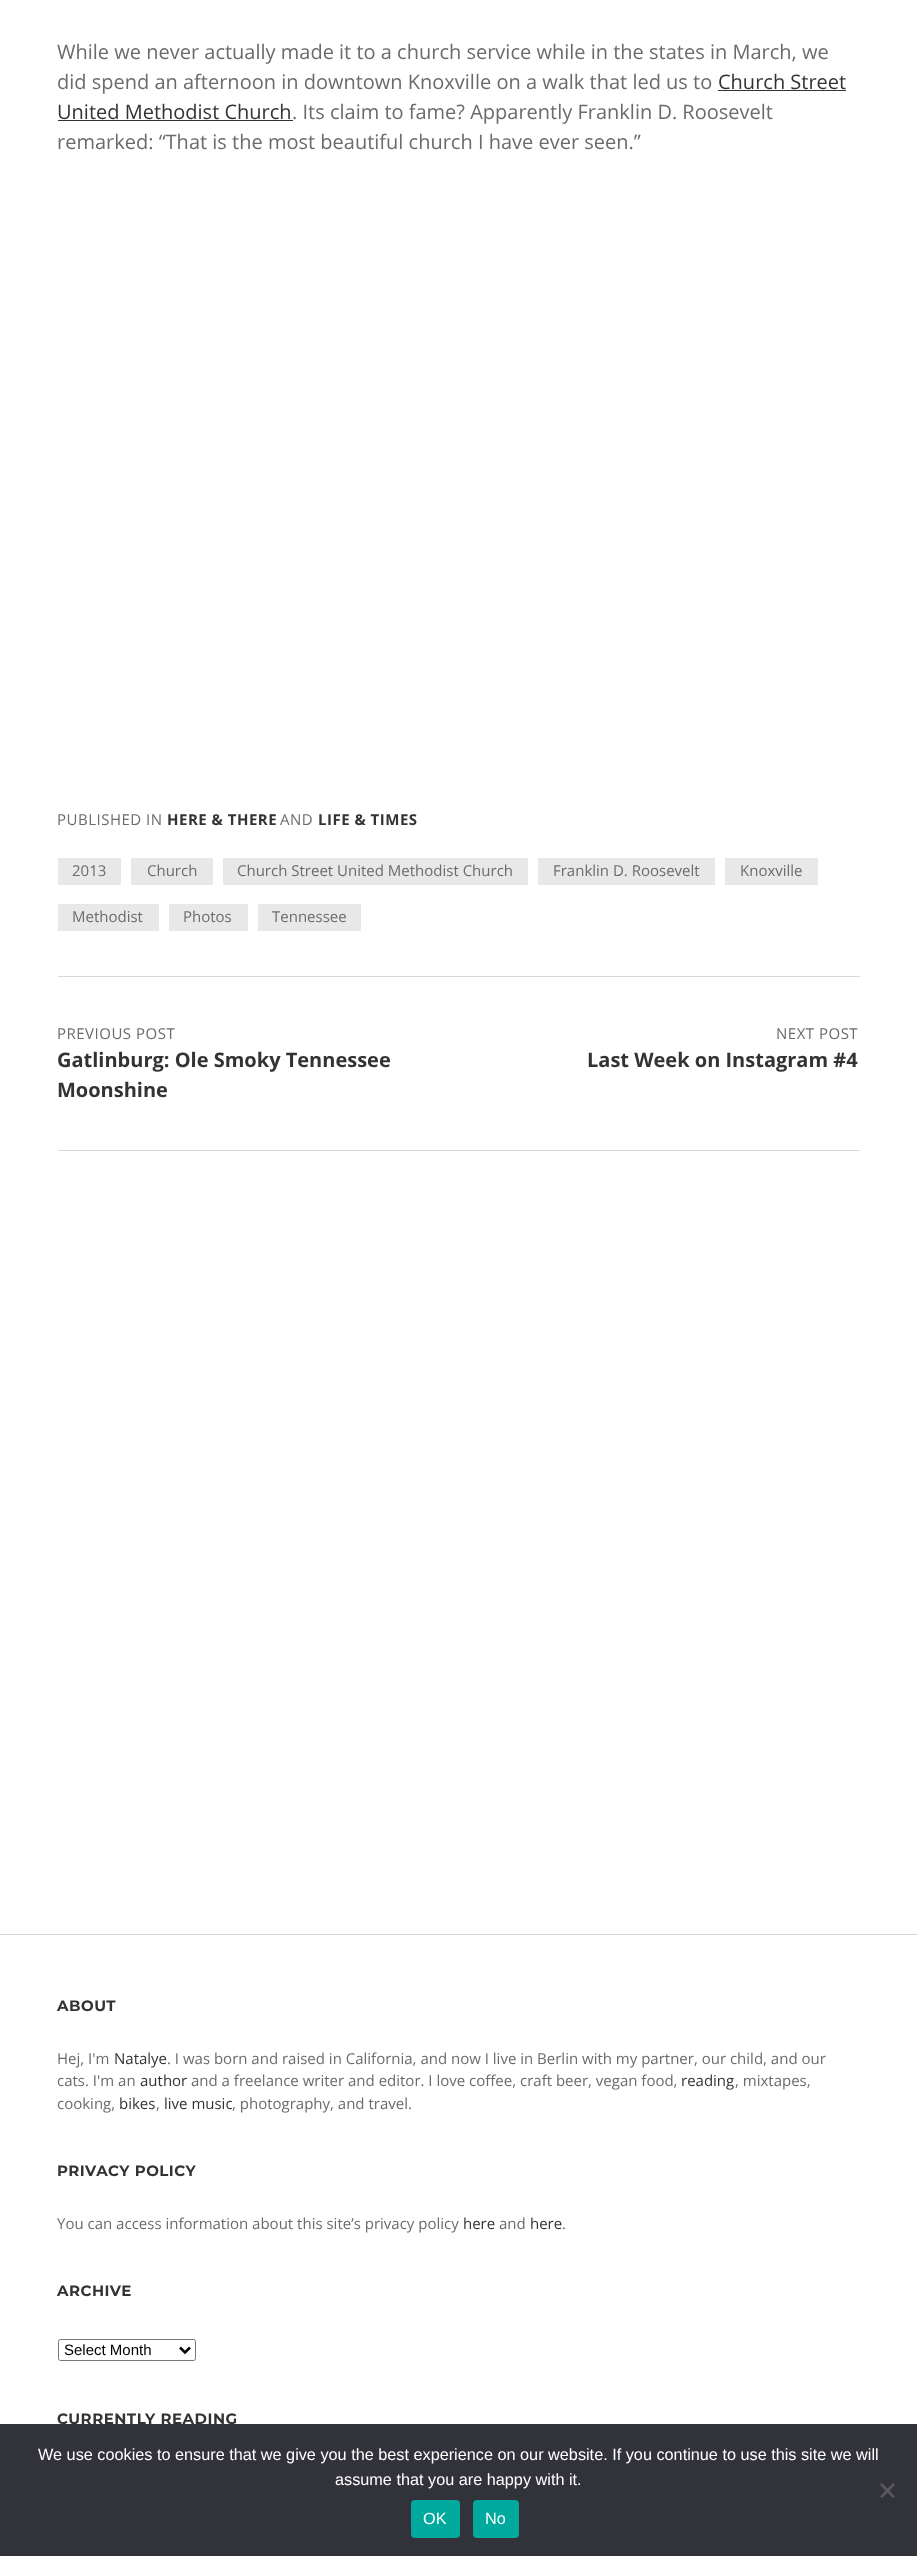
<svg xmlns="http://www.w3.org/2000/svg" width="917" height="2556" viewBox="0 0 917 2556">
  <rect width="100%" height="100%" fill="#ffffff"/>
  <text x="57" y="59" font-family="Open Sans" font-size="20" fill="#6b6b6b">While we never actually made it to a church service while in the states in March, we</text>
  <text x="57" y="89" font-family="Open Sans" font-size="20" fill="#6b6b6b">did spend an afternoon in downtown Knoxville on a walk that led us to</text>
  <text x="718" y="89" font-family="Open Sans" font-size="20" fill="#333333">Church Street</text>
  <rect x="718" y="90" width="128" height="1" fill="#333333"/>
  <text x="57" y="119" font-family="Open Sans" font-size="20" fill="#333333">United Methodist Church</text>
  <rect x="58" y="120" width="235" height="1" fill="#333333"/>
  <text x="292" y="119" font-family="Open Sans" font-size="20" fill="#6b6b6b">. Its claim to fame? Apparently Franklin D. Roosevelt</text>
  <text x="57" y="149" font-family="Open Sans" font-size="20" fill="#6b6b6b">remarked: “That is the most beautiful church I have ever seen.”</text>
  <text x="57" y="825" font-family="Open Sans" font-size="15" letter-spacing="0.5" fill="#6b6b6b">PUBLISHED IN</text>
  <text x="167" y="825" font-family="Open Sans" font-size="15" font-weight="bold" letter-spacing="0.5" fill="#333333">HERE &amp; THERE</text>
  <text x="280" y="825" font-family="Open Sans" font-size="15" letter-spacing="0.5" fill="#6b6b6b">AND</text>
  <text x="318" y="825" font-family="Open Sans" font-size="15" font-weight="bold" letter-spacing="0.5" fill="#333333">LIFE &amp; TIMES</text>
  <rect x="58" y="858" width="63" height="27" fill="#e8e8e8"/>
  <text x="72" y="876" font-family="Open Sans" font-size="15" fill="#6b6b6b">2013</text>
  <rect x="131" y="858" width="82" height="27" fill="#e8e8e8"/>
  <text x="147" y="876" font-family="Open Sans" font-size="15" fill="#6b6b6b">Church</text>
  <rect x="223" y="858" width="305" height="27" fill="#e8e8e8"/>
  <text x="237" y="876" font-family="Open Sans" font-size="15" fill="#6b6b6b">Church Street United Methodist Church</text>
  <rect x="538" y="858" width="177" height="27" fill="#e8e8e8"/>
  <text x="553" y="876" font-family="Open Sans" font-size="15" fill="#6b6b6b">Franklin D. Roosevelt</text>
  <rect x="725" y="858" width="93" height="27" fill="#e8e8e8"/>
  <text x="740" y="876" font-family="Open Sans" font-size="15" fill="#6b6b6b">Knoxville</text>
  <rect x="58" y="904" width="101" height="27" fill="#e8e8e8"/>
  <text x="72" y="922" font-family="Open Sans" font-size="15" fill="#6b6b6b">Methodist</text>
  <rect x="169" y="904" width="79" height="27" fill="#e8e8e8"/>
  <text x="183" y="922" font-family="Open Sans" font-size="15" fill="#6b6b6b">Photos</text>
  <rect x="258" y="904" width="103" height="27" fill="#e8e8e8"/>
  <text x="272" y="922" font-family="Open Sans" font-size="15" fill="#6b6b6b">Tennessee</text>
  <rect x="58" y="976" width="802" height="1" fill="#d8d8d8"/>
  <rect x="58" y="1150" width="802" height="1" fill="#d8d8d8"/>
  <text x="57" y="1039" font-family="Open Sans" font-size="15" letter-spacing="0.5" fill="#6b6b6b">PREVIOUS POST</text>
  <text x="57" y="1067" font-family="Open Sans" font-size="20" font-weight="bold" fill="#333333">Gatlinburg: Ole Smoky Tennessee</text>
  <text x="57" y="1097" font-family="Open Sans" font-size="20" font-weight="bold" fill="#333333">Moonshine</text>
  <text x="776" y="1039" font-family="Open Sans" font-size="15" letter-spacing="0.5" fill="#6b6b6b">NEXT POST</text>
  <text x="587" y="1067" font-family="Open Sans" font-size="20" font-weight="bold" fill="#333333">Last Week on Instagram #4</text>
  <rect x="0" y="1934" width="917" height="1" fill="#d8d8d8"/>
  <text x="57" y="2011" font-family="Montserrat" font-size="15" font-weight="bold" letter-spacing="0.5" fill="#333333">ABOUT</text>
  <text x="57" y="2064" font-family="Open Sans" font-size="15" fill="#6b6b6b">Hej, I'm</text>
  <text x="114" y="2064" font-family="Open Sans" font-size="15" fill="#333333">Natalye</text>
  <text x="167" y="2064" font-family="Open Sans" font-size="15" fill="#6b6b6b">. I was born and raised in California, and now I live in Berlin with my partner, our child, and our</text>
  <text x="57" y="2086" font-family="Open Sans" font-size="15" fill="#6b6b6b">cats. I'm an</text>
  <text x="140" y="2086" font-family="Open Sans" font-size="15" fill="#333333">author</text>
  <text x="191" y="2086" font-family="Open Sans" font-size="15" fill="#6b6b6b">and a freelance writer and editor. I love coffee, craft beer, vegan food,</text>
  <text x="681" y="2086" font-family="Open Sans" font-size="15" fill="#333333">reading</text>
  <text x="735" y="2086" font-family="Open Sans" font-size="15" fill="#6b6b6b">, mixtapes,</text>
  <text x="57" y="2109" font-family="Open Sans" font-size="15" fill="#6b6b6b">cooking,</text>
  <text x="119" y="2109" font-family="Open Sans" font-size="15" fill="#333333">bikes</text>
  <text x="156" y="2109" font-family="Open Sans" font-size="15" fill="#6b6b6b">,</text>
  <text x="164" y="2109" font-family="Open Sans" font-size="15" fill="#333333">live music</text>
  <text x="232" y="2109" font-family="Open Sans" font-size="15" fill="#6b6b6b">, photography, and travel.</text>
  <text x="57" y="2176" font-family="Montserrat" font-size="15" font-weight="bold" letter-spacing="0.5" fill="#333333">PRIVACY POLICY</text>
  <text x="57" y="2229" font-family="Open Sans" font-size="15" fill="#6b6b6b">You can access information about this site’s privacy policy</text>
  <text x="463" y="2229" font-family="Open Sans" font-size="15" fill="#333333">here</text>
  <text x="499" y="2229" font-family="Open Sans" font-size="15" fill="#6b6b6b">and</text>
  <text x="530" y="2229" font-family="Open Sans" font-size="15" fill="#333333">here</text>
  <text x="562" y="2229" font-family="Open Sans" font-size="15" fill="#6b6b6b">.</text>
  <text x="57" y="2296" font-family="Montserrat" font-size="15" font-weight="bold" letter-spacing="0.5" fill="#333333">ARCHIVE</text>
  <rect x="58.5" y="2339.5" width="137" height="21" rx="2" fill="none" stroke="#767676"/>
  <path d="M180 2347.5L185 2352.5L190 2347.5" fill="none" stroke="#000000" stroke-width="2.5"/>
  <text x="64" y="2355" font-family="Liberation Sans" font-size="15" fill="#000000">Select Month</text>
  <text x="57" y="2424" font-family="Montserrat" font-size="15" font-weight="bold" letter-spacing="0.5" fill="#333333">CURRENTLY READING</text>
  <rect x="0" y="2424" width="917" height="132" fill="#32323a"/>
  <text x="38" y="2460" font-family="Liberation Sans" font-size="16.25" fill="#ffffff">We use cookies to ensure that we give you the best experience on our website. If you continue to use this site we will</text>
  <text x="335" y="2485" font-family="Liberation Sans" font-size="16.25" fill="#ffffff">assume that you are happy with it.</text>
  <path d="M893 2483L895 2485L882 2498L880 2496.5Z" fill="#59595d"/>
  <path d="M880 2485L882 2483L895 2496.5L893 2498Z" fill="#59595d"/>
  <rect x="411" y="2500" width="49" height="38" rx="4" fill="#00a99d"/>
  <text x="423" y="2524" font-family="Liberation Sans" font-size="16.25" fill="#ffffff">OK</text>
  <rect x="473" y="2500" width="46" height="38" rx="4" fill="#00a99d"/>
  <text x="485" y="2524" font-family="Liberation Sans" font-size="16.25" fill="#ffffff">No</text>
</svg>
